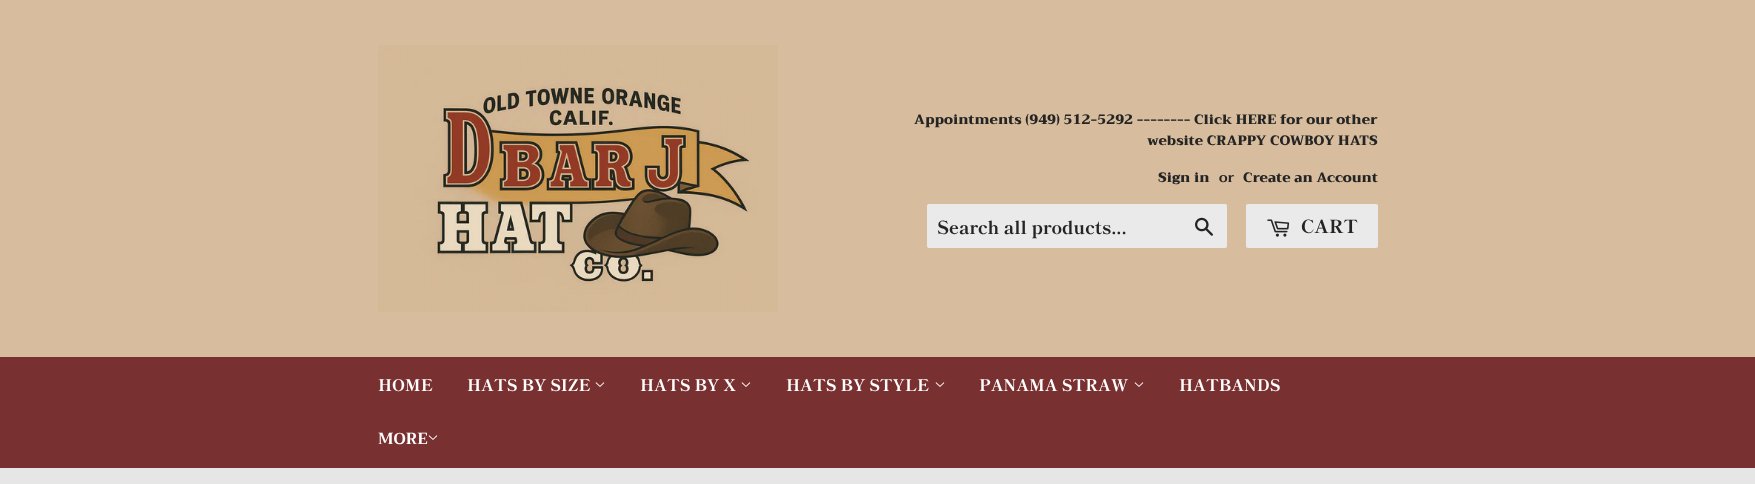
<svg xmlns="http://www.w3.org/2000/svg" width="1755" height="484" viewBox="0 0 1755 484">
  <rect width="100%" height="100%" fill="#e6e6e6"/>
  <rect x="0" y="0" width="1755" height="357" fill="#d7bd9d"/>
  <image x="378" y="45" width="400" height="267" href="img1.png"/>
  <text x="914" y="124" font-family="Trirong" font-size="13.6" font-weight="900" fill="#242424">Appointments (949) 512-5292 -------- Click HERE for our other</text>
  <text x="1147" y="145" font-family="Trirong" font-size="13.6" font-weight="900" fill="#242424">website CRAPPY COWBOY HATS</text>
  <text x="1158" y="182" font-family="Trirong" font-size="13.6" font-weight="900" fill="#242424">Sign in</text>
  <text x="1219" y="182" font-family="Trirong" font-size="13.6" font-weight="bold" fill="#242424">or</text>
  <text x="1243" y="182" font-family="Trirong" font-size="13.6" font-weight="900" fill="#242424">Create an Account</text>
  <rect x="927" y="204" width="300" height="44" rx="2" fill="#ebeaea"/>
  <text x="937" y="234" font-family="Shippori Mincho" font-size="18" font-weight="800" fill="#242424">Search all products...</text>
  <image x="1195" y="217" width="18" height="19" href="img2.png"/>
  <rect x="1246" y="204" width="132" height="44" rx="2" fill="#ebeaea"/>
  <image x="1267" y="219" width="23" height="18" href="img3.png"/>
  <text x="1301" y="233" font-family="Shippori Mincho" font-size="18" font-weight="800" fill="#242424">CART</text>
  <rect x="0" y="357" width="1755" height="111" fill="#793030"/>
  <text x="378" y="391" font-family="Shippori Mincho" font-size="16" font-weight="800" fill="#ffffff">HOME</text>
  <text x="467" y="391" font-family="Shippori Mincho" font-size="16" font-weight="800" fill="#ffffff">HATS BY SIZE</text>
  <image x="595" y="382" width="10" height="5" href="img4.png"/>
  <text x="640" y="391" font-family="Shippori Mincho" font-size="16" font-weight="800" fill="#ffffff">HATS BY X</text>
  <image x="741" y="382" width="10" height="5" href="img4.png"/>
  <text x="786" y="391" font-family="Shippori Mincho" font-size="16" font-weight="800" fill="#ffffff">HATS BY STYLE</text>
  <image x="935" y="382" width="10" height="5" href="img4.png"/>
  <text x="979" y="391" font-family="Shippori Mincho" font-size="16" font-weight="800" fill="#ffffff">PANAMA STRAW</text>
  <image x="1134" y="382" width="10" height="5" href="img4.png"/>
  <text x="1179" y="391" font-family="Shippori Mincho" font-size="16" font-weight="800" fill="#ffffff">HATBANDS</text>
  <text x="378" y="444" font-family="Trirong" font-size="16" font-weight="bold" fill="#ffffff">MORE</text>
  <image x="428" y="435" width="10" height="5" href="img4.png"/>
</svg>
